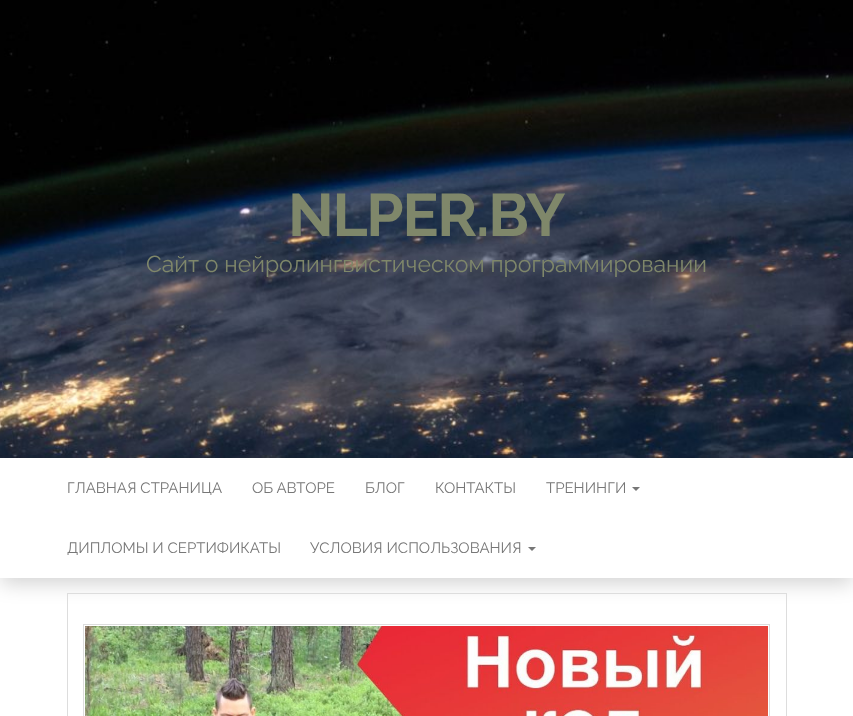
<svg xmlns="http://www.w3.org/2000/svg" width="853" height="716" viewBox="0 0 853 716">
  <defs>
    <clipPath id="clip1"><path d="M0 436H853V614H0ZM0 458H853V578H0Z" clip-rule="evenodd"/></clipPath>
    <filter id="blur1" x="-50%" y="-200%" width="200%" height="500%"><feGaussianBlur stdDeviation="9.5"/></filter>
  </defs>
  <rect width="100%" height="100%" fill="#ffffff"/>
  <image x="0" y="0" width="853" height="458" href="img1.png"/>
  <text x="288" y="236" font-family="Raleway" font-size="60" font-weight="bold" letter-spacing="-1.25" fill="#7f876a">NLPER.BY</text>
  <text x="146" y="272" font-family="Raleway" font-size="23" fill="#7f876a">Сайт о нейролингвистическом программировании</text>
  <g clip-path="url(#clip1)">
    <rect x="1" y="466" width="851" height="118" fill="#000000" fill-opacity="0.17" filter="url(#blur1)"/>
  </g>
  <text x="67" y="493" font-family="Raleway" font-size="15" fill="#777777">ГЛАВНАЯ СТРАНИЦА</text>
  <text x="252" y="493" font-family="Raleway" font-size="15" fill="#777777">ОБ АВТОРЕ</text>
  <text x="365" y="493" font-family="Raleway" font-size="15" fill="#777777">БЛОГ</text>
  <text x="435" y="493" font-family="Raleway" font-size="15" fill="#777777">КОНТАКТЫ</text>
  <text x="546" y="493" font-family="Raleway" font-size="15" fill="#777777">ТРЕНИНГИ</text>
  <path d="M632 487H640L636 491Z" fill="#777777"/>
  <text x="67" y="553" font-family="Raleway" font-size="15" fill="#777777">ДИПЛОМЫ И СЕРТИФИКАТЫ</text>
  <text x="310" y="553" font-family="Raleway" font-size="15" fill="#777777">УСЛОВИЯ ИСПОЛЬЗОВАНИЯ</text>
  <path d="M528 547H536L532 551Z" fill="#777777"/>
  <rect x="67.5" y="593.5" width="719" height="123" fill="none" stroke="#dddddd"/>
  <rect x="83.5" y="624.5" width="686" height="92" fill="none" stroke="#dddddd"/>
  <image x="85" y="626" width="683" height="90" href="img2.png"/>
</svg>
